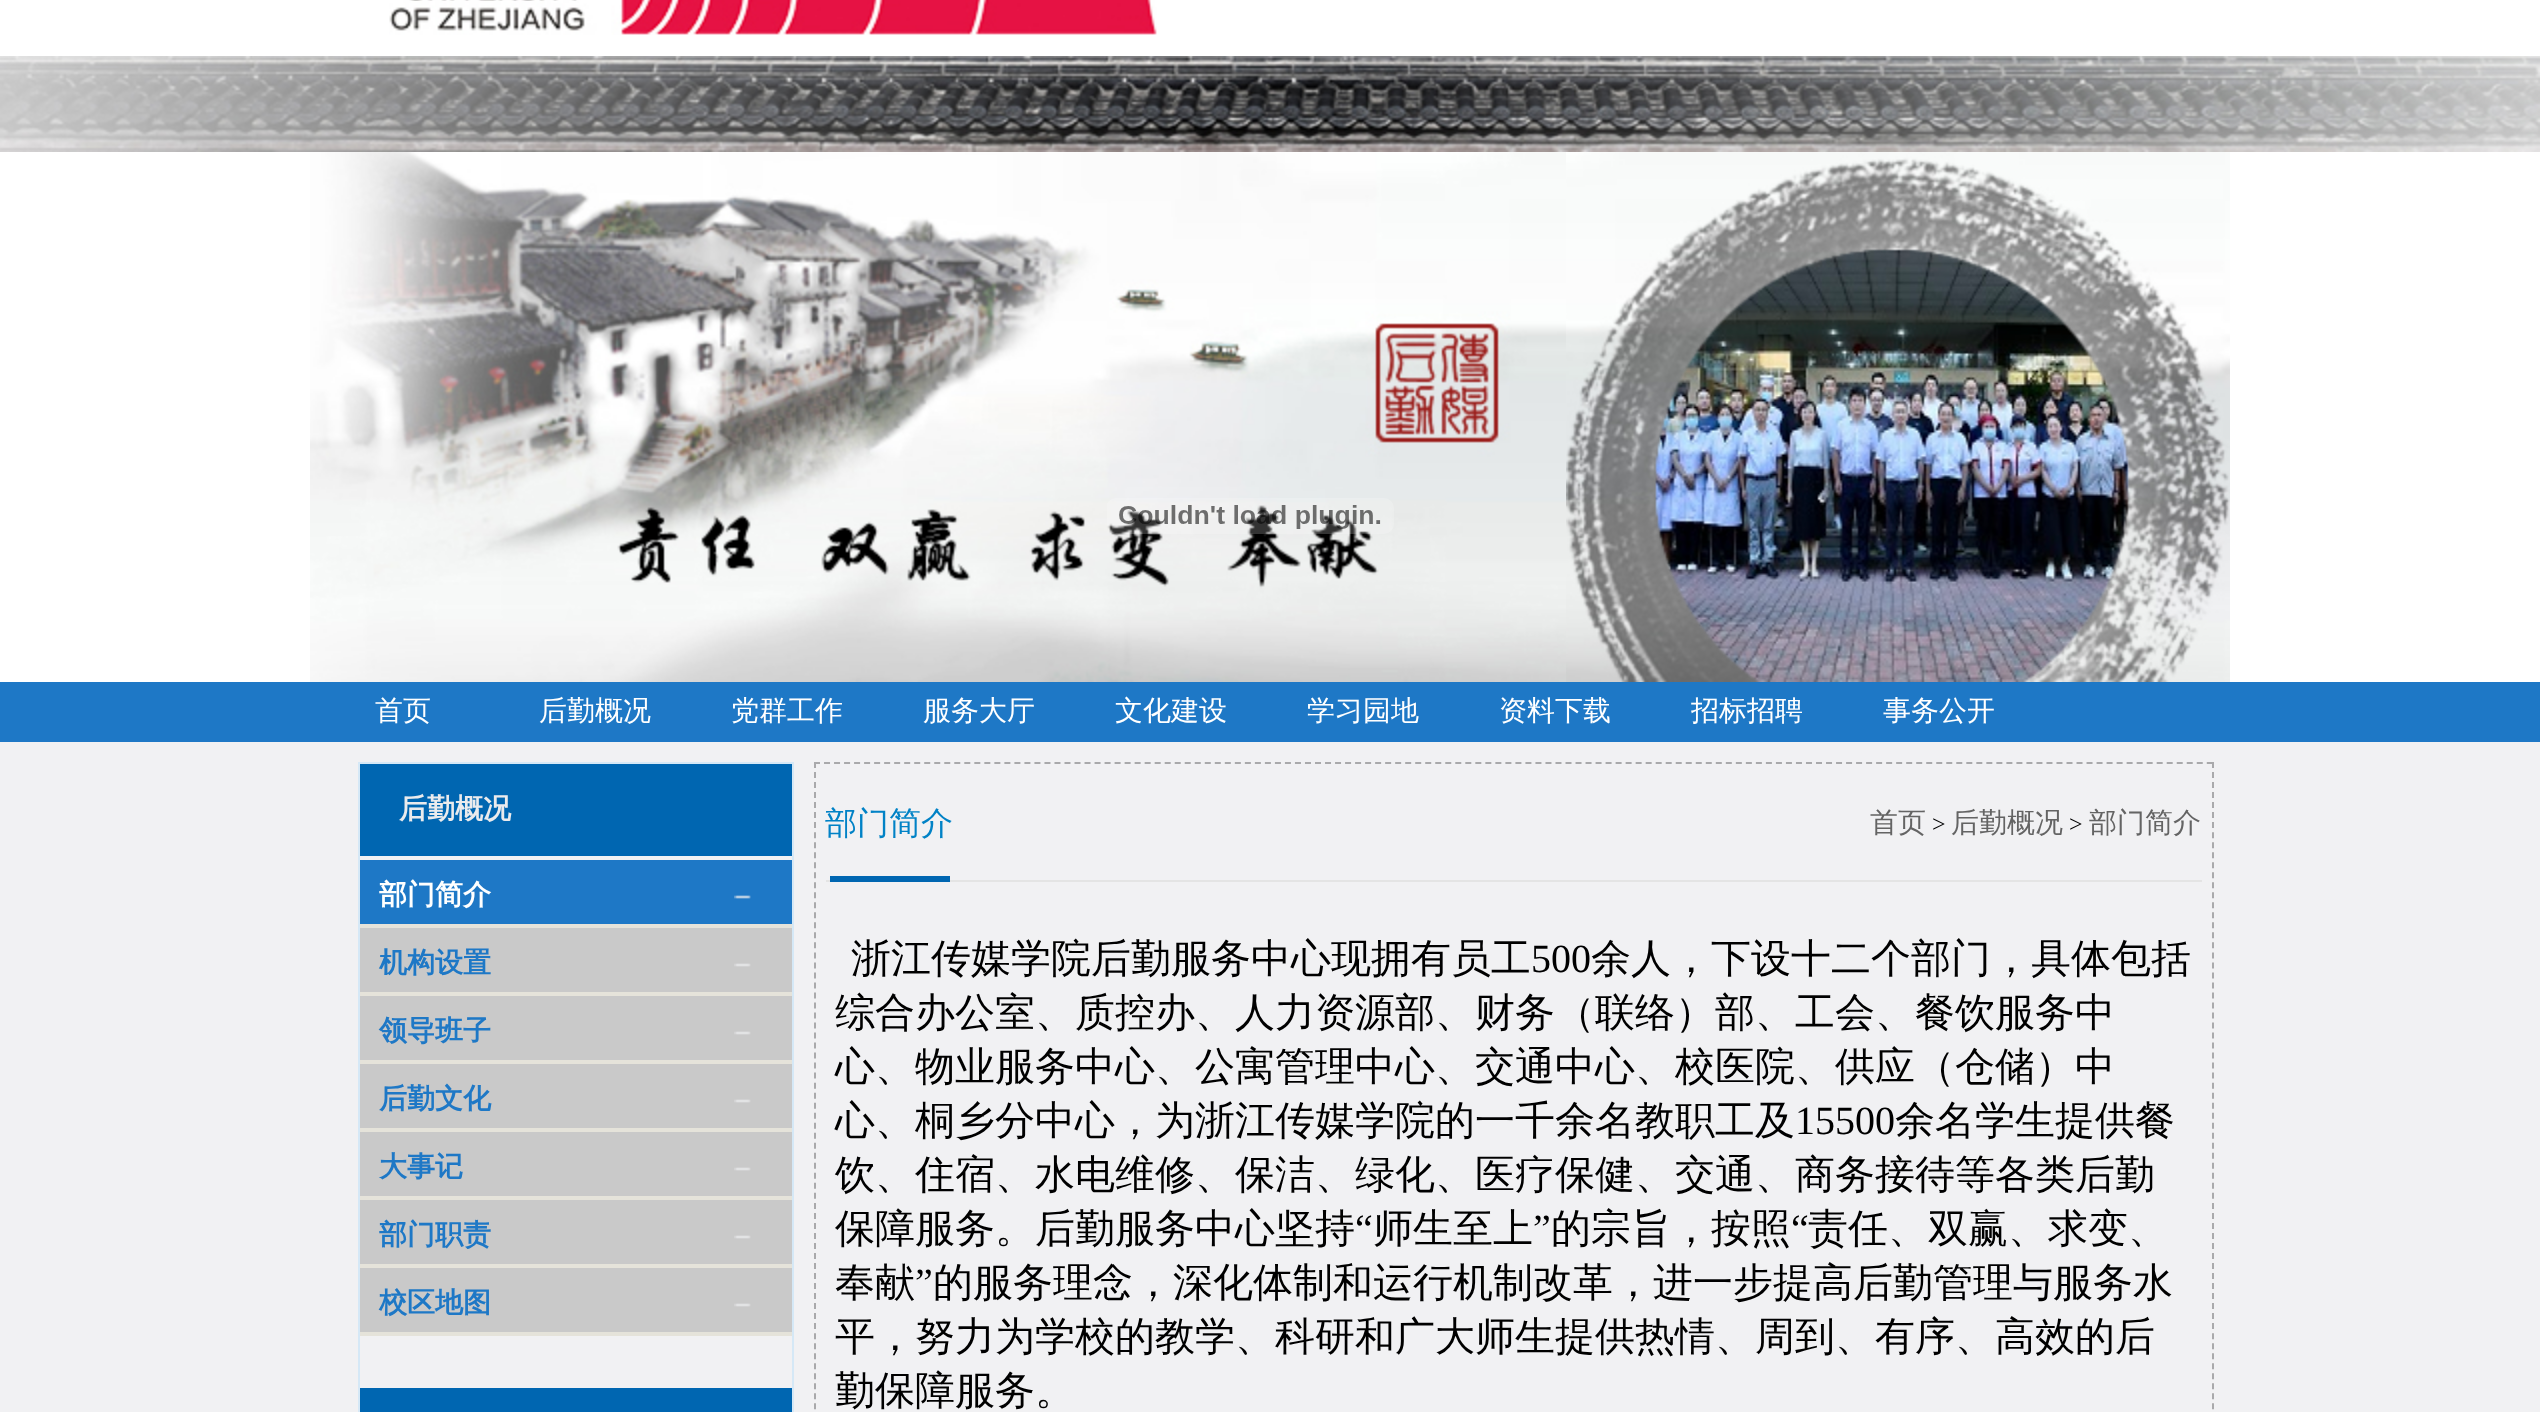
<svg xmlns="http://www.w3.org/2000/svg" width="2540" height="1412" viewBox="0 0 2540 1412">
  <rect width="100%" height="100%" fill="#ffffff"/>
  <image x="389" y="0" width="768" height="35" href="img1.png"/>
  <image x="0" y="56" width="2540" height="96" href="img2.png"/>
  <image x="310" y="152" width="1256" height="530" href="img3.png"/>
  <image x="1107" y="498" width="287" height="36" href="img4.png"/>
  <image x="1655" y="249" width="474" height="433" href="img6.png"/>
  <image x="1566" y="152" width="664" height="530" href="img5.png"/>
  <rect x="0" y="682" width="2540" height="60" fill="#1e78c6"/>
  <text x="375" y="720" font-family="WenQuanYi Zen Hei" font-size="28" font-weight="500" fill="#ffffff">首页</text>
  <text x="539" y="720" font-family="WenQuanYi Zen Hei" font-size="28" font-weight="500" fill="#ffffff">后勤概况</text>
  <text x="731" y="720" font-family="WenQuanYi Zen Hei" font-size="28" font-weight="500" fill="#ffffff">党群工作</text>
  <text x="923" y="720" font-family="WenQuanYi Zen Hei" font-size="28" font-weight="500" fill="#ffffff">服务大厅</text>
  <text x="1115" y="720" font-family="WenQuanYi Zen Hei" font-size="28" font-weight="500" fill="#ffffff">文化建设</text>
  <text x="1307" y="720" font-family="WenQuanYi Zen Hei" font-size="28" font-weight="500" fill="#ffffff">学习园地</text>
  <text x="1499" y="720" font-family="WenQuanYi Zen Hei" font-size="28" font-weight="500" fill="#ffffff">资料下载</text>
  <text x="1691" y="720" font-family="WenQuanYi Zen Hei" font-size="28" font-weight="500" fill="#ffffff">招标招聘</text>
  <text x="1883" y="720" font-family="WenQuanYi Zen Hei" font-size="28" font-weight="500" fill="#ffffff">事务公开</text>
  <rect x="0" y="742" width="2540" height="670" fill="#f1f1f3"/>
  <rect x="358" y="762" width="436" height="2" fill="#d5e8f6"/>
  <rect x="792" y="762" width="2" height="650" fill="#d5e8f6"/>
  <rect x="358" y="762" width="2" height="650" fill="#d5e8f6"/>
  <rect x="360" y="764" width="432" height="92" fill="#0066b1"/>
  <text x="399" y="818" font-family="WenQuanYi Zen Hei" font-size="28" font-weight="bold" fill="#eaebed">后勤概况</text>
  <rect x="360" y="860" width="432" height="64" fill="#1e78c6"/>
  <rect x="360" y="924" width="432" height="4" fill="#e5e3da"/>
  <text x="379" y="904" font-family="WenQuanYi Zen Hei" font-size="28" font-weight="bold" fill="#ffffff">部门简介</text>
  <image x="734" y="895" width="17" height="4" href="img7.png"/>
  <rect x="360" y="928" width="432" height="64" fill="#c9c9c9"/>
  <rect x="360" y="992" width="432" height="4" fill="#e5e3da"/>
  <text x="379" y="972" font-family="WenQuanYi Zen Hei" font-size="28" font-weight="bold" fill="#1e78c6">机构设置</text>
  <image x="734" y="963" width="17" height="4" href="img8.png"/>
  <rect x="360" y="996" width="432" height="64" fill="#c9c9c9"/>
  <rect x="360" y="1060" width="432" height="4" fill="#e5e3da"/>
  <text x="379" y="1040" font-family="WenQuanYi Zen Hei" font-size="28" font-weight="bold" fill="#1e78c6">领导班子</text>
  <image x="734" y="1031" width="17" height="4" href="img8.png"/>
  <rect x="360" y="1064" width="432" height="64" fill="#c9c9c9"/>
  <rect x="360" y="1128" width="432" height="4" fill="#e5e3da"/>
  <text x="379" y="1108" font-family="WenQuanYi Zen Hei" font-size="28" font-weight="bold" fill="#1e78c6">后勤文化</text>
  <image x="734" y="1099" width="17" height="4" href="img8.png"/>
  <rect x="360" y="1132" width="432" height="64" fill="#c9c9c9"/>
  <rect x="360" y="1196" width="432" height="4" fill="#e5e3da"/>
  <text x="379" y="1176" font-family="WenQuanYi Zen Hei" font-size="28" font-weight="bold" fill="#1e78c6">大事记</text>
  <image x="734" y="1167" width="17" height="4" href="img8.png"/>
  <rect x="360" y="1200" width="432" height="64" fill="#c9c9c9"/>
  <rect x="360" y="1264" width="432" height="4" fill="#e5e3da"/>
  <text x="379" y="1244" font-family="WenQuanYi Zen Hei" font-size="28" font-weight="bold" fill="#1e78c6">部门职责</text>
  <image x="734" y="1235" width="17" height="4" href="img8.png"/>
  <rect x="360" y="1268" width="432" height="64" fill="#c9c9c9"/>
  <rect x="360" y="1332" width="432" height="4" fill="#e5e3da"/>
  <text x="379" y="1312" font-family="WenQuanYi Zen Hei" font-size="28" font-weight="bold" fill="#1e78c6">校区地图</text>
  <image x="734" y="1303" width="17" height="4" href="img8.png"/>
  <rect x="360" y="1388" width="432" height="24" fill="#0066b1"/>
  <path d="M814 763H2214" fill="none" stroke="#a9a9ab" stroke-width="2" stroke-dasharray="6 4.02"/>
  <path d="M2213 762V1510" fill="none" stroke="#a9a9ab" stroke-width="2" stroke-dasharray="6 4.02"/>
  <path d="M815 762V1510" fill="none" stroke="#a9a9ab" stroke-width="2" stroke-dasharray="6 4.02"/>
  <rect x="826" y="880" width="1376" height="2" fill="#e4e4e4"/>
  <rect x="830" y="876" width="120" height="6" fill="#0066b1"/>
  <text x="825" y="834" font-family="WenQuanYi Zen Hei" font-size="32" font-weight="500" fill="#0182c6">部门简介</text>
  <text x="1870" y="832" font-family="WenQuanYi Zen Hei" font-size="28" font-weight="500" fill="#646464">首页</text>
  <text x="1932" y="832" font-family="Liberation Serif" font-size="24" fill="#000000">&gt;</text>
  <text x="1951" y="832" font-family="WenQuanYi Zen Hei" font-size="28" font-weight="500" fill="#646464">后勤概况</text>
  <text x="2069" y="832" font-family="Liberation Serif" font-size="24" fill="#000000">&gt;</text>
  <text x="2089" y="832" font-family="WenQuanYi Zen Hei" font-size="28" font-weight="500" fill="#646464">部门简介</text>
  <text x="851" y="972" font-family="WenQuanYi Zen Hei" font-size="40" font-weight="500" fill="#000000">浙江传媒学院后勤服务中心现拥有员工</text>
  <text x="1531" y="972" font-family="Liberation Serif" font-size="40" fill="#000000">500</text>
  <text x="1591" y="972" font-family="WenQuanYi Zen Hei" font-size="40" font-weight="500" fill="#000000">余人，下设十二个部门，具体包括</text>
  <text x="835" y="1026" font-family="WenQuanYi Zen Hei" font-size="40" font-weight="500" fill="#000000">综合办公室、质控办、人力资源部、财务（联络）部、工会、餐饮服务中</text>
  <text x="835" y="1080" font-family="WenQuanYi Zen Hei" font-size="40" font-weight="500" fill="#000000">心、物业服务中心、公寓管理中心、交通中心、校医院、供应（仓储）中</text>
  <text x="835" y="1134" font-family="WenQuanYi Zen Hei" font-size="40" font-weight="500" fill="#000000">心、桐乡分中心，为浙江传媒学院的一千余名教职工及</text>
  <text x="1795" y="1134" font-family="Liberation Serif" font-size="40" fill="#000000">15500</text>
  <text x="1895" y="1134" font-family="WenQuanYi Zen Hei" font-size="40" font-weight="500" fill="#000000">余名学生提供餐</text>
  <text x="835" y="1188" font-family="WenQuanYi Zen Hei" font-size="40" font-weight="500" fill="#000000">饮、住宿、水电维修、保洁、绿化、医疗保健、交通、商务接待等各类后勤</text>
  <text x="835" y="1242" font-family="WenQuanYi Zen Hei" font-size="40" font-weight="500" fill="#000000">保障服务。后勤服务中心坚持</text>
  <text x="1355" y="1242" font-family="Liberation Serif" font-size="40" fill="#000000">“</text>
  <text x="1373" y="1242" font-family="WenQuanYi Zen Hei" font-size="40" font-weight="500" fill="#000000">师生至上</text>
  <text x="1533" y="1242" font-family="Liberation Serif" font-size="40" fill="#000000">”</text>
  <text x="1551" y="1242" font-family="WenQuanYi Zen Hei" font-size="40" font-weight="500" fill="#000000">的宗旨，按照</text>
  <text x="1791" y="1242" font-family="Liberation Serif" font-size="40" fill="#000000">“</text>
  <text x="1808" y="1242" font-family="WenQuanYi Zen Hei" font-size="40" font-weight="500" fill="#000000">责任、双赢、求变、</text>
  <text x="835" y="1296" font-family="WenQuanYi Zen Hei" font-size="40" font-weight="500" fill="#000000">奉献</text>
  <text x="915" y="1296" font-family="Liberation Serif" font-size="40" fill="#000000">”</text>
  <text x="933" y="1296" font-family="WenQuanYi Zen Hei" font-size="40" font-weight="500" fill="#000000">的服务理念，深化体制和运行机制改革，进一步提高后勤管理与服务水</text>
  <text x="835" y="1350" font-family="WenQuanYi Zen Hei" font-size="40" font-weight="500" fill="#000000">平，努力为学校的教学、科研和广大师生提供热情、周到、有序、高效的后</text>
  <text x="835" y="1404" font-family="WenQuanYi Zen Hei" font-size="40" font-weight="500" fill="#000000">勤保障服务。</text>
</svg>
